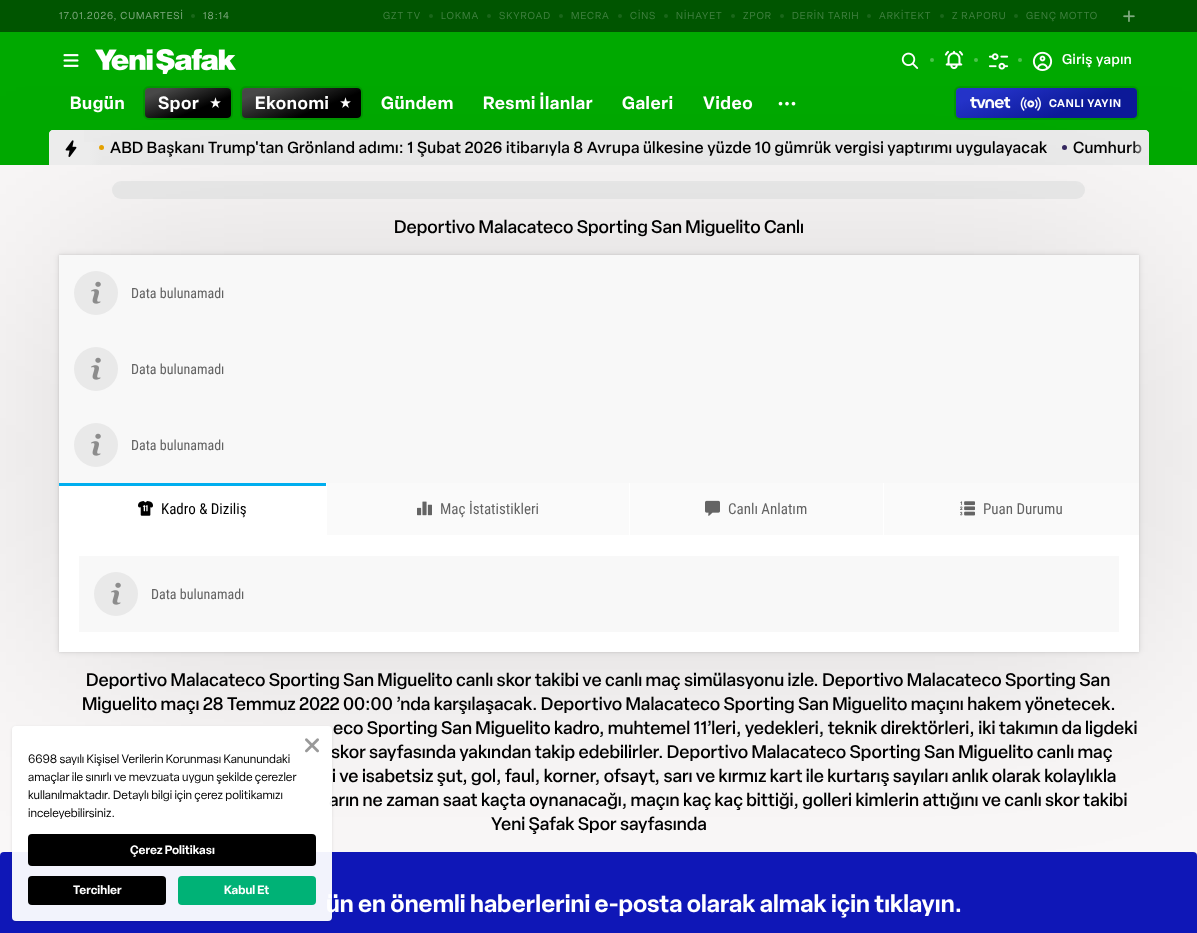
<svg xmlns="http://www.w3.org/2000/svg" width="1197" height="933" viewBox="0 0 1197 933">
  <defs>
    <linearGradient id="g1" gradientUnits="userSpaceOnUse" x1="177" y1="75" x2="199" y2="131"><stop offset="0.15" stop-color="#484848"/><stop offset="0.66" stop-color="#000000"/></linearGradient>
    <linearGradient id="g2" gradientUnits="userSpaceOnUse" x1="288" y1="69" x2="315" y2="137"><stop offset="0.15" stop-color="#484848"/><stop offset="0.66" stop-color="#000000"/></linearGradient>
    <linearGradient id="g3" gradientUnits="userSpaceOnUse" x1="1029" y1="59" x2="1064" y2="147"><stop offset="0.15" stop-color="#2433ca"/><stop offset="0.66" stop-color="#0c1999"/></linearGradient>
    <linearGradient id="g4" gradientUnits="userSpaceOnUse" x1="1124" y1="148" x2="1149" y2="148"><stop offset="0.35" stop-color="#ececec" stop-opacity="0"/><stop offset="1" stop-color="#ececec"/></linearGradient>
    <filter id="blur1" x="-50%" y="-200%" width="200%" height="500%"><feGaussianBlur stdDeviation="105"/></filter>
    <linearGradient id="g5" gradientUnits="userSpaceOnUse" x1="84" y1="148" x2="100" y2="148"><stop offset="0.35" stop-color="#ececec"/><stop offset="1" stop-color="#ececec" stop-opacity="0"/></linearGradient>
    <filter id="blur2" x="-50%" y="-200%" width="200%" height="500%"><feGaussianBlur stdDeviation="1"/></filter>
    <filter id="blur3" x="-50%" y="-200%" width="200%" height="500%"><feGaussianBlur stdDeviation="3"/></filter>
    <clipPath id="clip1"><path d="M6 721H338V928H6ZM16 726H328C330 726 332 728 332 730V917C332 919 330 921 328 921H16C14 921 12 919 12 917V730C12 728 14 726 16 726Z" clip-rule="evenodd"/></clipPath>
    <filter id="blur4" x="-50%" y="-200%" width="200%" height="500%"><feGaussianBlur stdDeviation="1.5"/></filter>
  </defs>
  <rect width="100%" height="100%" fill="#f9f7f7"/>
  <rect x="0" y="0" width="1197" height="32" fill="#005500"/>
  <text x="59" y="19" font-family="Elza" font-size="10" letter-spacing="1" fill="#80aa80">17.01.2026, CUMARTESİ</text>
  <circle cx="193" cy="16" r="2" fill="#1a661a"/>
  <text x="203" y="19" font-family="Elza" font-size="10" letter-spacing="1" fill="#80aa80">18:14</text>
  <text x="383" y="19" font-family="Elza" font-size="10" letter-spacing="1" fill="#408040">GZT TV</text>
  <circle cx="431" cy="16" r="2" fill="#1a661a"/>
  <text x="441" y="19" font-family="Elza" font-size="10" letter-spacing="1" fill="#408040">LOKMA</text>
  <circle cx="489" cy="16" r="2" fill="#1a661a"/>
  <text x="499" y="19" font-family="Elza" font-size="10" letter-spacing="1" fill="#408040">SKYROAD</text>
  <circle cx="561" cy="16" r="2" fill="#1a661a"/>
  <text x="571" y="19" font-family="Elza" font-size="10" letter-spacing="1" fill="#408040">MECRA</text>
  <circle cx="620" cy="16" r="2" fill="#1a661a"/>
  <text x="630" y="19" font-family="Elza" font-size="10" letter-spacing="1" fill="#408040">CİNS</text>
  <circle cx="666" cy="16" r="2" fill="#1a661a"/>
  <text x="676" y="19" font-family="Elza" font-size="10" letter-spacing="1" fill="#408040">NİHAYET</text>
  <circle cx="733" cy="16" r="2" fill="#1a661a"/>
  <text x="743" y="19" font-family="Elza" font-size="10" letter-spacing="1" fill="#408040">ZPOR</text>
  <circle cx="782" cy="16" r="2" fill="#1a661a"/>
  <text x="792" y="19" font-family="Elza" font-size="10" letter-spacing="1" fill="#408040">DERİN TARIH</text>
  <circle cx="869" cy="16" r="2" fill="#1a661a"/>
  <text x="879" y="19" font-family="Elza" font-size="10" letter-spacing="1" fill="#408040">ARKİTEKT</text>
  <circle cx="942" cy="16" r="2" fill="#1a661a"/>
  <text x="952" y="19" font-family="Elza" font-size="10" letter-spacing="1" fill="#408040">Z RAPORU</text>
  <circle cx="1016" cy="16" r="2" fill="#1a661a"/>
  <text x="1026" y="19" font-family="Elza" font-size="10" letter-spacing="1" fill="#408040">GENÇ MOTTO</text>
  <image x="1123" y="10" width="12" height="12" href="img1.png"/>
  <rect x="0" y="86" width="1197" height="79" fill="#00a900"/>
  <rect x="144" y="87" width="88" height="32" rx="5" fill="none" stroke="#009800" stroke-width="2"/>
  <rect x="145" y="88" width="86" height="30" rx="4" fill="url(#g1)"/>
  <image x="210" y="97" width="11" height="11" href="img8.png"/>
  <rect x="241" y="87" width="121" height="32" rx="5" fill="none" stroke="#009800" stroke-width="2"/>
  <rect x="242" y="88" width="119" height="30" rx="4" fill="url(#g2)"/>
  <image x="340" y="97" width="11" height="11" href="img9.png"/>
  <image x="778" y="101" width="18" height="5" href="img10.png"/>
  <rect x="955" y="87" width="183" height="32" rx="5" fill="none" stroke="#009800" stroke-width="2"/>
  <rect x="956" y="88" width="181" height="30" rx="4" fill="url(#g3)"/>
  <image x="970" y="97" width="41" height="12" href="img11.png"/>
  <image x="1020" y="97" width="21" height="14" href="img12.png"/>
  <path d="M53 130H1145C1147 130 1149 132 1149 134V165H49V134C49 132 51 130 53 130Z" fill="#ececec"/>
  <text x="1073" y="153" font-family="Elza" font-size="16" font-weight="500" letter-spacing="0.3" fill="#000000">Cumhurb</text>
  <path d="M1124 130H1145C1147 130 1149 132 1149 134V165H1124Z" fill="url(#g4)"/>
  <circle cx="101.5" cy="147.5" r="2.5" fill="#e7a300"/>
  <circle cx="1064.5" cy="147.5" r="2.5" fill="#362861"/>
  <rect x="112" y="181" width="973" height="18" rx="9" fill="#ebebeb"/>
  <rect x="59" y="255" width="1080" height="397" fill="#000000" fill-opacity="0.12" filter="url(#blur1)"/>
  <rect x="0" y="32" width="1197" height="54" fill="#00a900"/>
  <image x="63" y="54" width="16" height="13" href="img2.png"/>
  <image x="95" y="49" width="141" height="25" href="img3.png"/>
  <image x="901" y="52" width="18" height="17" href="img4.png"/>
  <circle cx="932" cy="60" r="2" fill="#4dc34d"/>
  <image x="944" y="50" width="20" height="20" href="img5.png"/>
  <circle cx="976" cy="60" r="2" fill="#4dc34d"/>
  <image x="988" y="53" width="21" height="17" href="img6.png"/>
  <circle cx="1020" cy="60" r="2" fill="#4dc34d"/>
  <image x="1032" y="51" width="21" height="20" href="img7.png"/>
  <text x="1062" y="64" font-family="Elza" font-size="14" font-weight="500" letter-spacing="0.5" fill="#ffffff">Giriş yapın</text>
  <text x="70" y="109" font-family="Elza" font-size="17.5" font-weight="600" letter-spacing="0.6" fill="#ffffff">Bugün</text>
  <text x="158" y="109" font-family="Elza" font-size="17.5" font-weight="600" letter-spacing="0.6" fill="#ffffff">Spor</text>
  <text x="255" y="109" font-family="Elza" font-size="17.5" font-weight="600" letter-spacing="0.6" fill="#ffffff">Ekonomi</text>
  <text x="381" y="109" font-family="Elza" font-size="17.5" font-weight="600" letter-spacing="0.6" fill="#ffffff">Gündem</text>
  <text x="483" y="109" font-family="Elza" font-size="17.5" font-weight="600" letter-spacing="0.6" fill="#ffffff">Resmi İlanlar</text>
  <text x="622" y="109" font-family="Elza" font-size="17.5" font-weight="600" letter-spacing="0.6" fill="#ffffff">Galeri</text>
  <text x="703" y="109" font-family="Elza" font-size="17.5" font-weight="600" letter-spacing="0.6" fill="#ffffff">Video</text>
  <text x="1049" y="107" font-family="Elza" font-size="11" font-weight="600" letter-spacing="0.75" fill="#ffffff">CANLI YAYIN</text>
  <path d="M53 130H84V165H49V134C49 132 51 130 53 130Z" fill="#ececec"/>
  <image x="65" y="140" width="12" height="17" href="img13.png"/>
  <rect x="84" y="142" width="16" height="23" fill="url(#g5)"/>
  <text x="110" y="153" font-family="Elza" font-size="16" font-weight="500" letter-spacing="0.3" fill="#000000">ABD Başkanı Trump'tan Grönland adımı: 1 Şubat 2026 itibarıyla 8 Avrupa ülkesine yüzde 10 gümrük vergisi yaptırımı uygulayacak</text>
  <text x="394" y="233" font-family="Elza" font-size="18" font-weight="500" fill="#000000">Deportivo Malacateco Sporting San Miguelito Canlı</text>
  <rect x="59" y="255" width="1080" height="397" fill="#000000" fill-opacity="0.12" filter="url(#blur2)"/>
  <rect x="59" y="255" width="1080" height="397" fill="#000000" fill-opacity="0.1" filter="url(#blur3)"/>
  <rect x="59" y="486" width="1080" height="166" fill="#ffffff"/>
  <rect x="59" y="255" width="1080" height="228" fill="#f8f8f8"/>
  <circle cx="96" cy="293" r="22" fill="#e9e9e9"/>
  <image x="91" y="281" width="10" height="23" href="img14.png"/>
  <text x="131" y="298" font-family="Roboto Condensed" font-size="14" fill="#636363">Data bulunamadı</text>
  <circle cx="96" cy="369" r="22" fill="#e9e9e9"/>
  <image x="91" y="357" width="10" height="23" href="img14.png"/>
  <text x="131" y="374" font-family="Roboto Condensed" font-size="14" fill="#636363">Data bulunamadı</text>
  <circle cx="96" cy="445" r="22" fill="#e9e9e9"/>
  <image x="91" y="433" width="10" height="23" href="img14.png"/>
  <text x="131" y="450" font-family="Roboto Condensed" font-size="14" fill="#636363">Data bulunamadı</text>
  <rect x="59" y="483" width="267" height="3" fill="#00aeef"/>
  <image x="138" y="501" width="15" height="15" href="img15.png"/>
  <text x="161" y="514" font-family="Roboto Condensed" font-size="15" fill="#000000">Kadro &amp; Diziliş</text>
  <rect x="327" y="483" width="302" height="52" fill="#fafafa"/>
  <rect x="326" y="483" width="1" height="3" fill="#ffffff"/>
  <image x="417" y="501" width="15" height="15" href="img16.png"/>
  <text x="440" y="514" font-family="Roboto Condensed" font-size="15" fill="#636363">Maç İstatistikleri</text>
  <rect x="630" y="483" width="253" height="52" fill="#fafafa"/>
  <rect x="629" y="483" width="1" height="3" fill="#ffffff"/>
  <image x="705" y="500" width="15" height="16" href="img17.png"/>
  <text x="728" y="514" font-family="Roboto Condensed" font-size="15" fill="#636363">Canlı Anlatım</text>
  <rect x="884" y="483" width="255" height="52" fill="#fafafa"/>
  <rect x="883" y="483" width="1" height="3" fill="#ffffff"/>
  <image x="960" y="501" width="15" height="15" href="img18.png"/>
  <text x="983" y="514" font-family="Roboto Condensed" font-size="15" fill="#636363">Puan Durumu</text>
  <rect x="79" y="556" width="1040" height="76" fill="#f8f8f8"/>
  <circle cx="116" cy="594" r="22" fill="#e9e9e9"/>
  <image x="111" y="582" width="10" height="23" href="img14.png"/>
  <text x="151" y="599" font-family="Roboto Condensed" font-size="14" fill="#636363">Data bulunamadı</text>
  <text x="86" y="686" font-family="Elza" font-size="18" font-weight="500" fill="#000000">Deportivo Malacateco Sporting San Miguelito canlı skor takibi ve canlı maç simülasyonu izle. Deportivo Malacateco Sporting San</text>
  <text x="82" y="710" font-family="Elza" font-size="18" font-weight="500" fill="#000000">Miguelito maçı 28 Temmuz 2022 00:00 ’nda karşılaşacak. Deportivo Malacateco Sporting San Miguelito maçını hakem yönetecek.</text>
  <text x="333" y="734" font-family="Elza" font-size="18" font-weight="500" fill="#000000">eco Sporting San Miguelito kadro, muhtemel 11’leri, yedekleri, teknik direktörleri, iki takımın da ligdeki</text>
  <text x="331" y="758" font-family="Elza" font-size="18" font-weight="500" fill="#000000">skor sayfasında yakından takip edebilirler. Deportivo Malacateco Sporting San Miguelito canlı maç</text>
  <text x="332" y="782" font-family="Elza" font-size="18" font-weight="500" fill="#000000">i ve isabetsiz şut, gol, faul, korner, ofsayt, sarı ve kırmız kart ile kurtarış sayıları anlık olarak kolaylıkla</text>
  <text x="329" y="806" font-family="Elza" font-size="18" font-weight="500" fill="#000000">arın ne zaman saat kaçta oynanacağı, maçın kaç kaç bittiği, golleri kimlerin attığını ve canlı skor takibi</text>
  <text x="491" y="830" font-family="Elza" font-size="18" font-weight="500" fill="#000000">Yeni Şafak Spor sayfasında</text>
  <rect x="0" y="852" width="1197" height="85" rx="4" fill="#0f17b7"/>
  <g clip-path="url(#clip1)">
    <rect x="12" y="727" width="320" height="195" rx="4" fill="#000000" fill-opacity="0.1" filter="url(#blur4)"/>
  </g>
  <text x="326" y="912" font-family="Elza" font-size="24" font-weight="600" letter-spacing="0.05" fill="#ffffff">ün en önemli haberlerini e-posta olarak almak için tıklayın.</text>
  <rect x="12" y="726" width="320" height="195" rx="4" fill="#ffffff" fill-opacity="0.95"/>
  <image x="305" y="738" width="14" height="15" href="img19.png"/>
  <text x="28" y="763" font-family="Elza" font-size="12" fill="#000000">6698 sayılı Kişisel Verilerin Korunması Kanunundaki</text>
  <text x="28" y="781" font-family="Elza" font-size="12" fill="#000000">amaçlar ile sınırlı ve mevzuata uygun şekilde çerezler</text>
  <text x="28" y="799" font-family="Elza" font-size="12" fill="#000000">kullanılmaktadır. Detaylı bilgi için çerez politikamızı</text>
  <text x="28" y="817" font-family="Elza" font-size="12" fill="#000000">inceleyebilirsiniz.</text>
  <rect x="28" y="834" width="288" height="32" rx="4" fill="#000000"/>
  <text x="130" y="854" font-family="Elza" font-size="12" font-weight="600" fill="#ffffff">Çerez Politikası</text>
  <rect x="28" y="876" width="138" height="29" rx="4" fill="#000000"/>
  <text x="73" y="894" font-family="Elza" font-size="12" font-weight="600" fill="#ffffff">Tercihler</text>
  <rect x="178" y="876" width="138" height="29" rx="4" fill="#00b276"/>
  <text x="224" y="894" font-family="Elza" font-size="12" font-weight="600" fill="#ffffff">Kabul Et</text>
</svg>
